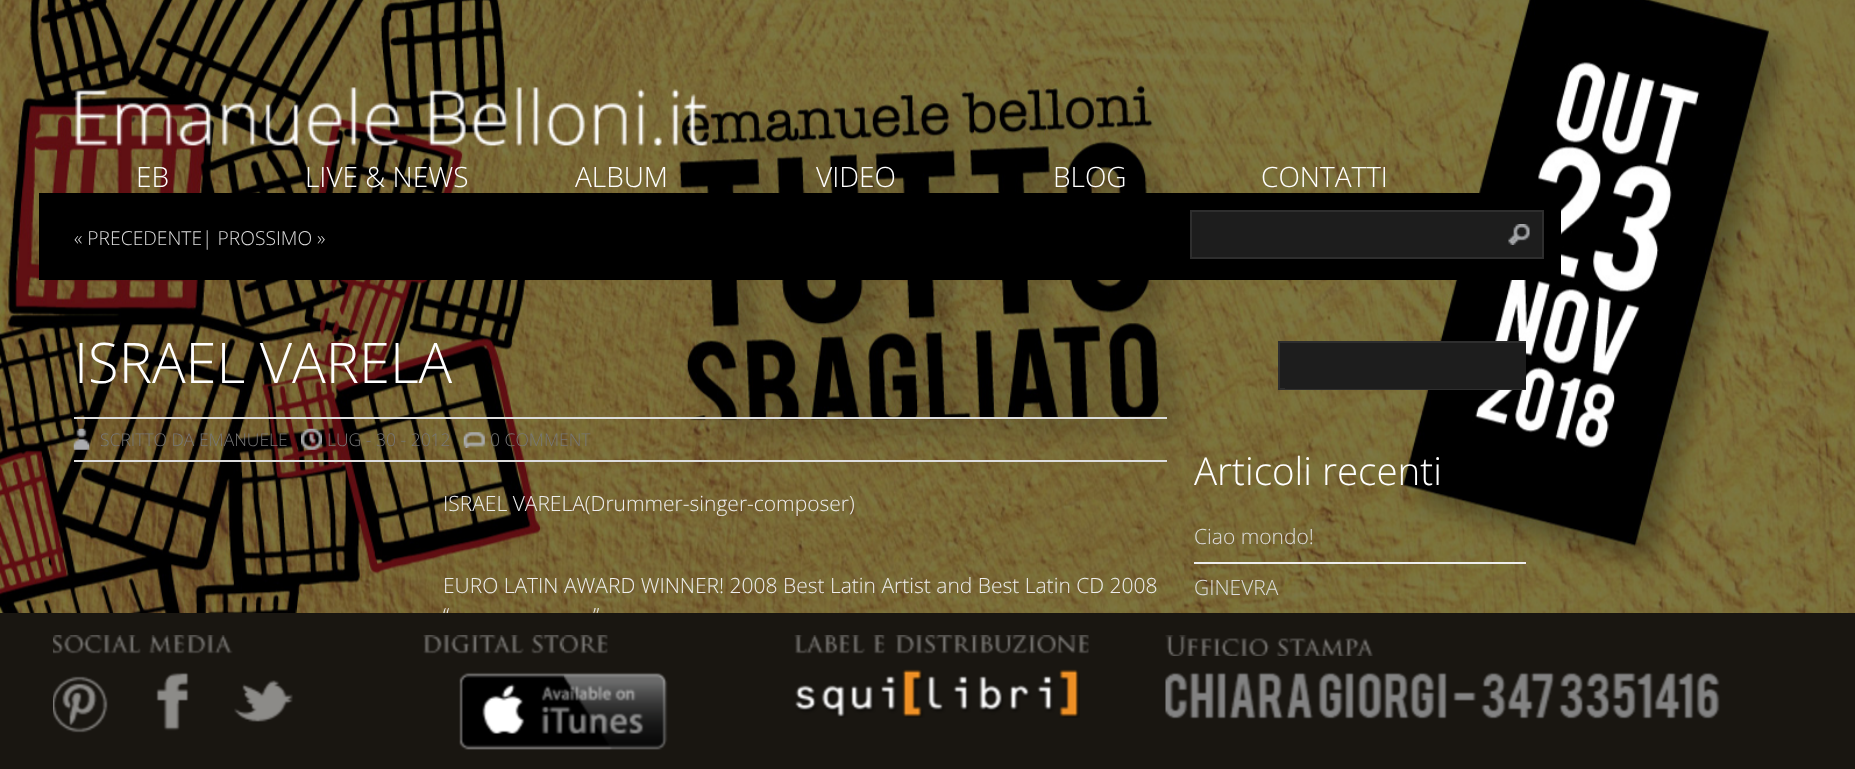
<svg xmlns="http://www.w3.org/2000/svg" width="1855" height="769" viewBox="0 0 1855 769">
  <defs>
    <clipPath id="clip1"><rect x="1194" y="298" width="332" height="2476"/></clipPath>
  </defs>
  <rect width="100%" height="100%" fill="#ffffff"/>
  <image x="0" y="0" width="1855" height="613" href="img1.png"/>
  <image x="75" y="87" width="633" height="59" href="img2.png"/>
  <text x="136" y="187" font-family="Open Sans" font-size="28" font-weight="300" fill="#ffffff">EB</text>
  <text x="305" y="187" font-family="Open Sans" font-size="28" font-weight="300" fill="#ffffff">LIVE &amp; NEWS</text>
  <text x="575" y="187" font-family="Open Sans" font-size="28" font-weight="300" fill="#ffffff">ALBUM</text>
  <text x="816" y="187" font-family="Open Sans" font-size="28" font-weight="300" fill="#ffffff">VIDEO</text>
  <text x="1053" y="187" font-family="Open Sans" font-size="28" font-weight="300" fill="#ffffff">BLOG</text>
  <text x="1261" y="187" font-family="Open Sans" font-size="28" font-weight="300" fill="#ffffff">CONTATTI</text>
  <rect x="39" y="193" width="1522" height="87" fill="#000000"/>
  <text x="74" y="245" font-family="Open Sans" font-size="19.25" font-weight="300" fill="#dddddd">« PRECEDENTE| PROSSIMO »</text>
  <rect x="1191" y="211" width="352" height="47" fill="#1d1d1d" stroke="#2e2e2e" stroke-width="2"/>
  <image x="1508" y="224" width="22" height="21" href="img3.png"/>
  <text x="74" y="383" font-family="Open Sans" font-size="56" font-weight="300" fill="#ffffff">ISRAEL VARELA</text>
  <rect x="74" y="417" width="1093" height="2" fill="#dddddd"/>
  <rect x="74" y="460" width="1093" height="2" fill="#dddddd"/>
  <image x="73" y="428" width="17" height="22" href="img4.png"/>
  <text x="100" y="446" font-family="Open Sans" font-size="17.5" font-weight="300" fill="#777777">SCRITTO DA EMANUELE</text>
  <image x="301" y="428" width="21" height="22" href="img5.png"/>
  <text x="327" y="446" font-family="Open Sans" font-size="17.5" font-weight="300" fill="#777777">LUG - 30 - 2012</text>
  <image x="463" y="432" width="22" height="16" href="img6.png"/>
  <text x="490" y="446" font-family="Open Sans" font-size="17.5" font-weight="300" fill="#777777">0 COMMENT</text>
  <text x="443" y="511" font-family="Open Sans" font-size="21" font-weight="300" fill="#eeeeee">ISRAEL VARELA(Drummer-singer-composer)</text>
  <text x="443" y="593" font-family="Open Sans" font-size="21" font-weight="300" fill="#eeeeee">EURO LATIN AWARD WINNER! 2008 Best Latin Artist and Best Latin CD 2008</text>
  <text x="443" y="623" font-family="Open Sans" font-size="21" font-weight="300" fill="#eeeeee">“</text>
  <text x="593" y="623" font-family="Open Sans" font-size="21" font-weight="300" fill="#eeeeee">”</text>
  <rect x="1280" y="343" width="5" height="45" fill="#1d1d1d"/>
  <g clip-path="url(#clip1)">
    <rect x="1279" y="342" width="351" height="47" fill="none" stroke="#2e2e2e" stroke-width="2"/>
  </g>
  <rect x="1285" y="343" width="241" height="46" fill="#1d1d1d"/>
  <text x="1194" y="485" font-family="Open Sans" font-size="38.5" font-weight="300" fill="#ffffff">Articoli recenti</text>
  <rect x="1194" y="562" width="332" height="2" fill="#eeeeee"/>
  <text x="1194" y="544" font-family="Open Sans" font-size="21" font-weight="300" fill="#dddddd">Ciao mondo!</text>
  <text x="1194" y="595" font-family="Open Sans" font-size="21" font-weight="300" fill="#dddddd">GINEVRA</text>
  <rect x="0" y="613" width="1855" height="156" fill="#191611"/>
  <image x="53" y="635" width="180" height="19" href="img7.png"/>
  <image x="53" y="676" width="55" height="57" href="img8.png"/>
  <image x="156" y="672" width="33" height="59" href="img9.png"/>
  <image x="234" y="680" width="59" height="42" href="img10.png"/>
  <image x="423" y="635" width="185" height="19" href="img11.png"/>
  <image x="459" y="672" width="209" height="78" href="img12.png"/>
  <image x="794" y="635" width="295" height="19" href="img13.png"/>
  <image x="795" y="669" width="285" height="49" href="img14.png"/>
  <image x="1165" y="635" width="208" height="21" href="img15.png"/>
  <image x="1165" y="672" width="555" height="47" href="img16.png"/>
</svg>
